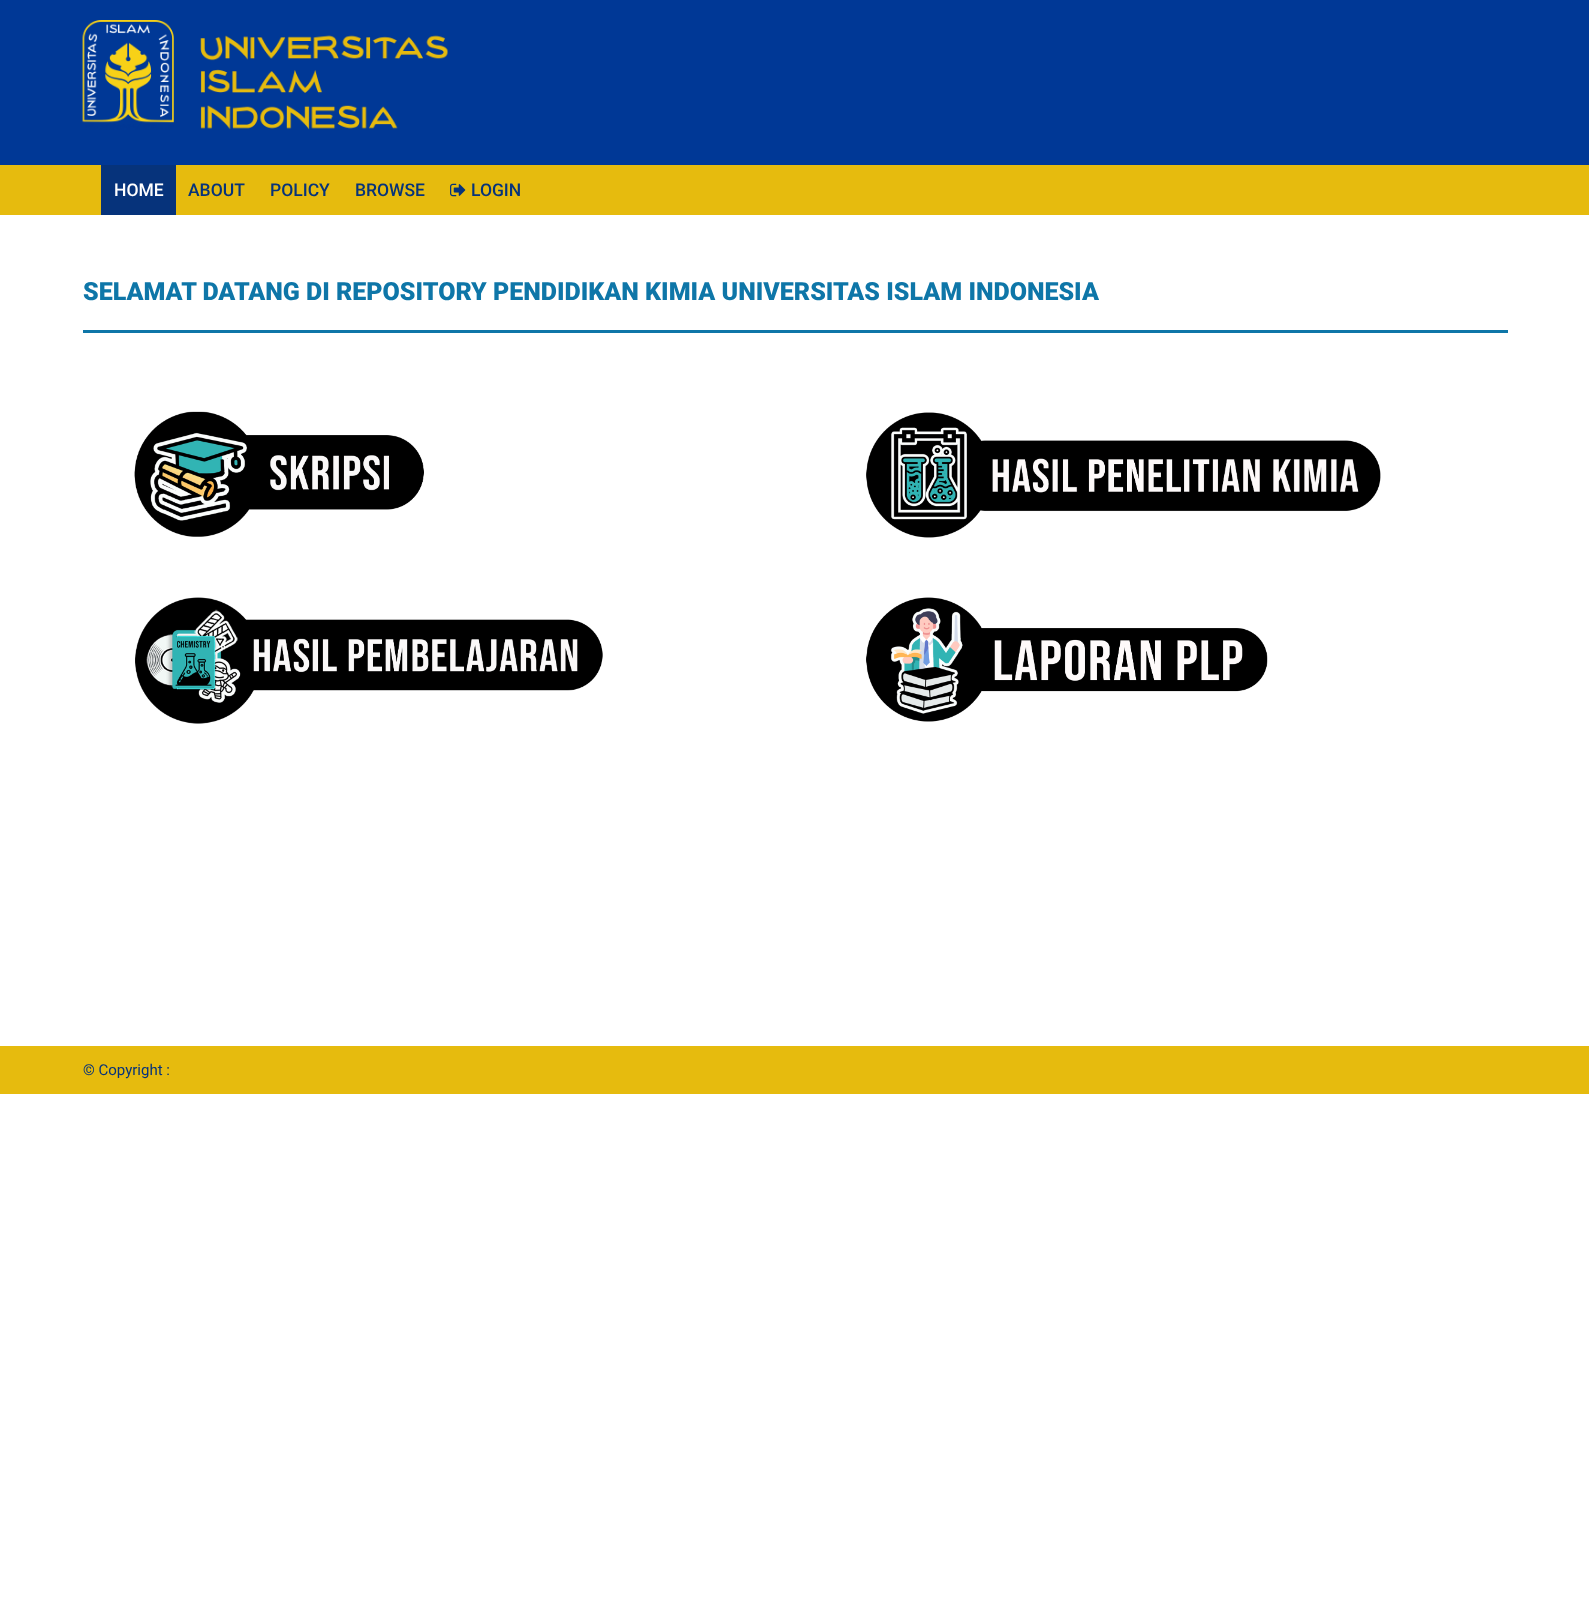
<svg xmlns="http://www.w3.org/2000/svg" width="1589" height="1610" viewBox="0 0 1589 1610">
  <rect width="100%" height="100%" fill="#ffffff"/>
  <rect x="0" y="0" width="1589" height="165" fill="#003896"/>
  <image x="82" y="20" width="366" height="110" href="img1.png"/>
  <rect x="0" y="165" width="1589" height="50" fill="#e6bb0e"/>
  <rect x="101" y="165" width="75" height="50" fill="#06337b"/>
  <text x="114" y="196" font-family="Roboto" font-size="17.5" font-weight="500" fill="#ffffff">HOME</text>
  <text x="188" y="196" font-family="Roboto" font-size="17.5" font-weight="500" fill="#06337b">ABOUT</text>
  <text x="270" y="196" font-family="Roboto" font-size="17.5" font-weight="500" fill="#06337b">POLICY</text>
  <text x="355" y="196" font-family="Roboto" font-size="17.5" font-weight="500" fill="#06337b">BROWSE</text>
  <image x="450" y="183" width="16" height="14" href="img2.png"/>
  <text x="471" y="196" font-family="Roboto" font-size="17.5" font-weight="500" fill="#06337b">LOGIN</text>
  <rect x="83" y="330" width="1425" height="3" fill="#0e76a8"/>
  <text x="83" y="300" font-family="Roboto" font-size="25" font-weight="900" fill="#0e76a8">SELAMAT DATANG DI REPOSITORY PENDIDIKAN KIMIA UNIVERSITAS ISLAM INDONESIA</text>
  <image x="134" y="411" width="290" height="126" href="img3.png"/>
  <image x="866" y="412" width="515" height="126" href="img4.png"/>
  <image x="135" y="597" width="468" height="127" href="img5.png"/>
  <image x="866" y="597" width="402" height="125" href="img6.png"/>
  <rect x="0" y="1046" width="1589" height="48" fill="#e6bb0e"/>
  <text x="83" y="1075" font-family="Roboto" font-size="15" fill="#06337b">© Copyright :</text>
</svg>
